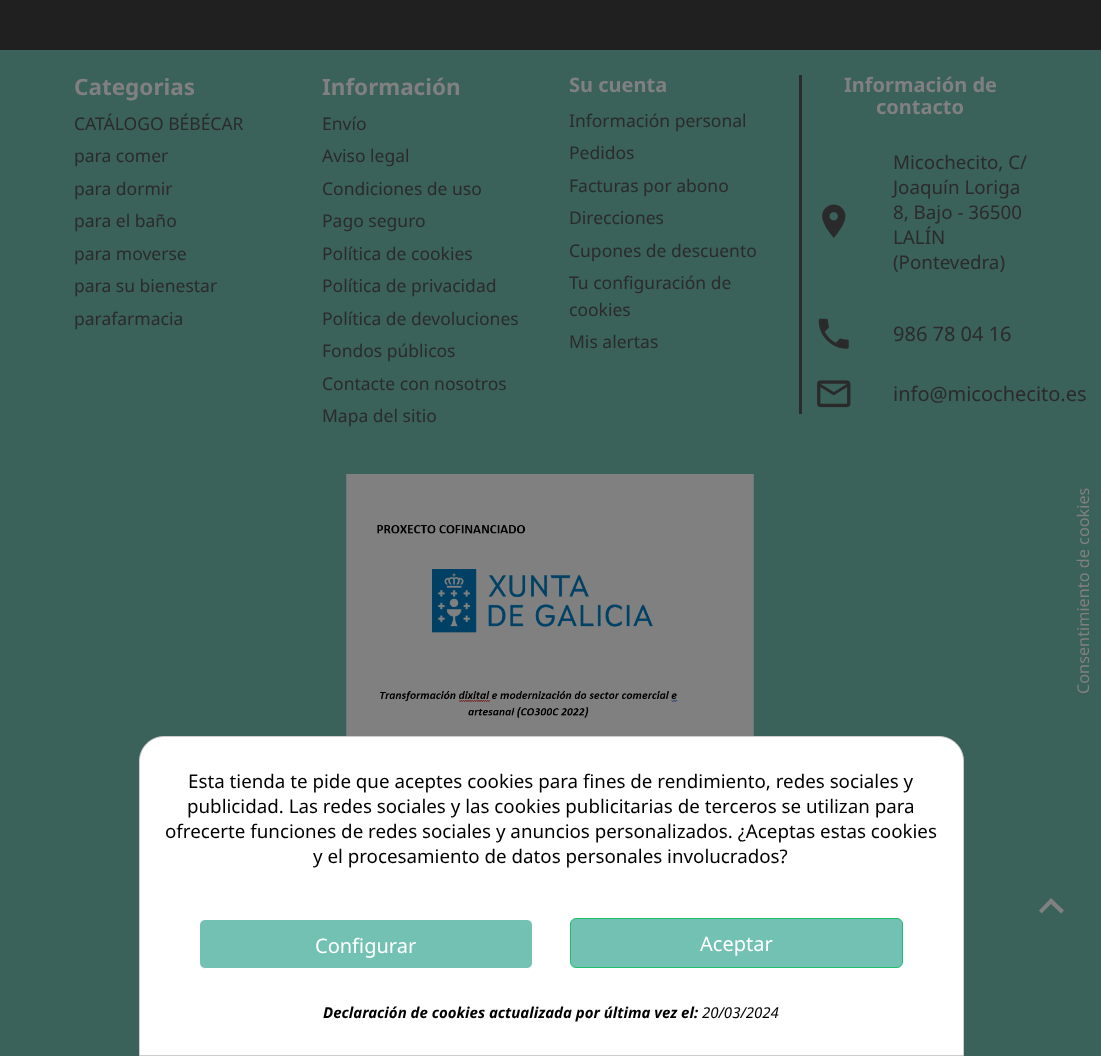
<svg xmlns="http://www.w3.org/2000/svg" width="1101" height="1056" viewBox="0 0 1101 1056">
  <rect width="100%" height="100%" fill="#202020"/>
  <rect x="0" y="50" width="1101" height="1006" fill="#3a615a"/>
  <text x="74" y="95" font-family="Noto Sans" font-size="22.5" font-weight="bold" fill="#808080">Categorias</text>
  <text x="74" y="130" font-family="Noto Sans" font-size="17.5" fill="#2b2b2b">CATÁLOGO BÉBÉCAR</text>
  <text x="74" y="162" font-family="Noto Sans" font-size="17.5" fill="#2b2b2b">para comer</text>
  <text x="74" y="195" font-family="Noto Sans" font-size="17.5" fill="#2b2b2b">para dormir</text>
  <text x="74" y="227" font-family="Noto Sans" font-size="17.5" fill="#2b2b2b">para el baño</text>
  <text x="74" y="260" font-family="Noto Sans" font-size="17.5" fill="#2b2b2b">para moverse</text>
  <text x="74" y="292" font-family="Noto Sans" font-size="17.5" fill="#2b2b2b">para su bienestar</text>
  <text x="74" y="325" font-family="Noto Sans" font-size="17.5" fill="#2b2b2b">parafarmacia</text>
  <text x="322" y="95" font-family="Noto Sans" font-size="22.5" font-weight="bold" fill="#808080">Información</text>
  <text x="322" y="130" font-family="Noto Sans" font-size="17.5" fill="#2b2b2b">Envío</text>
  <text x="322" y="162" font-family="Noto Sans" font-size="17.5" fill="#2b2b2b">Aviso legal</text>
  <text x="322" y="195" font-family="Noto Sans" font-size="17.5" fill="#2b2b2b">Condiciones de uso</text>
  <text x="322" y="227" font-family="Noto Sans" font-size="17.5" fill="#2b2b2b">Pago seguro</text>
  <text x="322" y="260" font-family="Noto Sans" font-size="17.5" fill="#2b2b2b">Política de cookies</text>
  <text x="322" y="292" font-family="Noto Sans" font-size="17.5" fill="#2b2b2b">Política de privacidad</text>
  <text x="322" y="325" font-family="Noto Sans" font-size="17.5" fill="#2b2b2b">Política de devoluciones</text>
  <text x="322" y="357" font-family="Noto Sans" font-size="17.5" fill="#2b2b2b">Fondos públicos</text>
  <text x="322" y="390" font-family="Noto Sans" font-size="17.5" fill="#2b2b2b">Contacte con nosotros</text>
  <text x="322" y="422" font-family="Noto Sans" font-size="17.5" fill="#2b2b2b">Mapa del sitio</text>
  <text x="569" y="92" font-family="Noto Sans" font-size="20" font-weight="bold" fill="#808080">Su cuenta</text>
  <text x="569" y="127" font-family="Noto Sans" font-size="17.5" fill="#2b2b2b">Información personal</text>
  <text x="569" y="159" font-family="Noto Sans" font-size="17.5" fill="#2b2b2b">Pedidos</text>
  <text x="569" y="192" font-family="Noto Sans" font-size="17.5" fill="#2b2b2b">Facturas por abono</text>
  <text x="569" y="224" font-family="Noto Sans" font-size="17.5" fill="#2b2b2b">Direcciones</text>
  <text x="569" y="257" font-family="Noto Sans" font-size="17.5" fill="#2b2b2b">Cupones de descuento</text>
  <text x="569" y="289" font-family="Noto Sans" font-size="17.5" fill="#2b2b2b">Tu configuración de</text>
  <text x="569" y="316" font-family="Noto Sans" font-size="17.5" fill="#2b2b2b">cookies</text>
  <text x="569" y="348" font-family="Noto Sans" font-size="17.5" fill="#2b2b2b">Mis alertas</text>
  <rect x="799" y="75" width="3" height="339" fill="#2b2b2b"/>
  <text x="844" y="92" font-family="Noto Sans" font-size="20" font-weight="bold" fill="#808080">Información de</text>
  <text x="876" y="114" font-family="Noto Sans" font-size="20" font-weight="bold" fill="#808080">contacto</text>
  <image x="822" y="204" width="24" height="34" href="img1.png"/>
  <text x="893" y="169" font-family="Noto Sans" font-size="18.75" fill="#2b2b2b">Micochecito, C/</text>
  <text x="893" y="194" font-family="Noto Sans" font-size="18.75" fill="#2b2b2b">Joaquín Loriga</text>
  <text x="893" y="219" font-family="Noto Sans" font-size="18.75" fill="#2b2b2b">8, Bajo - 36500</text>
  <text x="893" y="244" font-family="Noto Sans" font-size="18.75" fill="#2b2b2b">LALÍN</text>
  <text x="893" y="269" font-family="Noto Sans" font-size="18.75" fill="#2b2b2b">(Pontevedra)</text>
  <image x="818" y="318" width="31" height="31" href="img2.png"/>
  <text x="893" y="341" font-family="Noto Sans" font-size="20" fill="#2b2b2b">986 78 04 16</text>
  <image x="817" y="380" width="34" height="28" href="img3.png"/>
  <text x="893" y="401" font-family="Noto Sans" font-size="20" fill="#2b2b2b">info@micochecito.es</text>
  <image x="346" y="474" width="408" height="262" href="img4.png"/>
  <path d="M1051 898L1064 910.5L1061 913.5L1051 904L1041.5 913.5L1039 910.5Z" fill="#808080"/>
  <text x="1089" y="694" transform="rotate(-90 1089 694)" font-family="Noto Sans" font-size="16.25" fill="#808080">Consentimiento de cookies</text>
  <path d="M164 736.5H939C952.5 736.5 963.5 747.5 963.5 761V1055.5H139.5V761C139.5 747.5 150.5 736.5 164 736.5Z" fill="#ffffff" stroke="#cccccc"/>
  <text x="188" y="788" font-family="Noto Sans" font-size="18.75" fill="#000000">Esta tienda te pide que aceptes cookies para fines de rendimiento, redes sociales y</text>
  <text x="187" y="813" font-family="Noto Sans" font-size="18.75" fill="#000000">publicidad. Las redes sociales y las cookies publicitarias de terceros se utilizan para</text>
  <text x="165" y="838" font-family="Noto Sans" font-size="18.75" fill="#000000">ofrecerte funciones de redes sociales y anuncios personalizados. ¿Aceptas estas cookies</text>
  <text x="313" y="863" font-family="Noto Sans" font-size="18.75" fill="#000000">y el procesamiento de datos personales involucrados?</text>
  <rect x="199.5" y="919.5" width="333" height="49" rx="5.5" fill="#73c1b3" stroke="#ffffff"/>
  <text x="315" y="953" font-family="Noto Sans" font-size="20" fill="#ffffff">Configurar</text>
  <rect x="570.5" y="918.5" width="332" height="49" rx="5.5" fill="#73c1b3" stroke="#20bf6b"/>
  <text x="700" y="951" font-family="Noto Sans" font-size="20" fill="#ffffff">Aceptar</text>
  <text x="323" y="1018" font-family="Noto Sans" font-size="15" font-weight="bold" font-style="italic" fill="#000000">Declaración de cookies actualizada por última vez el:</text>
  <text x="702" y="1018" font-family="Noto Sans" font-size="15" font-style="italic" fill="#000000">20/03/2024</text>
</svg>
